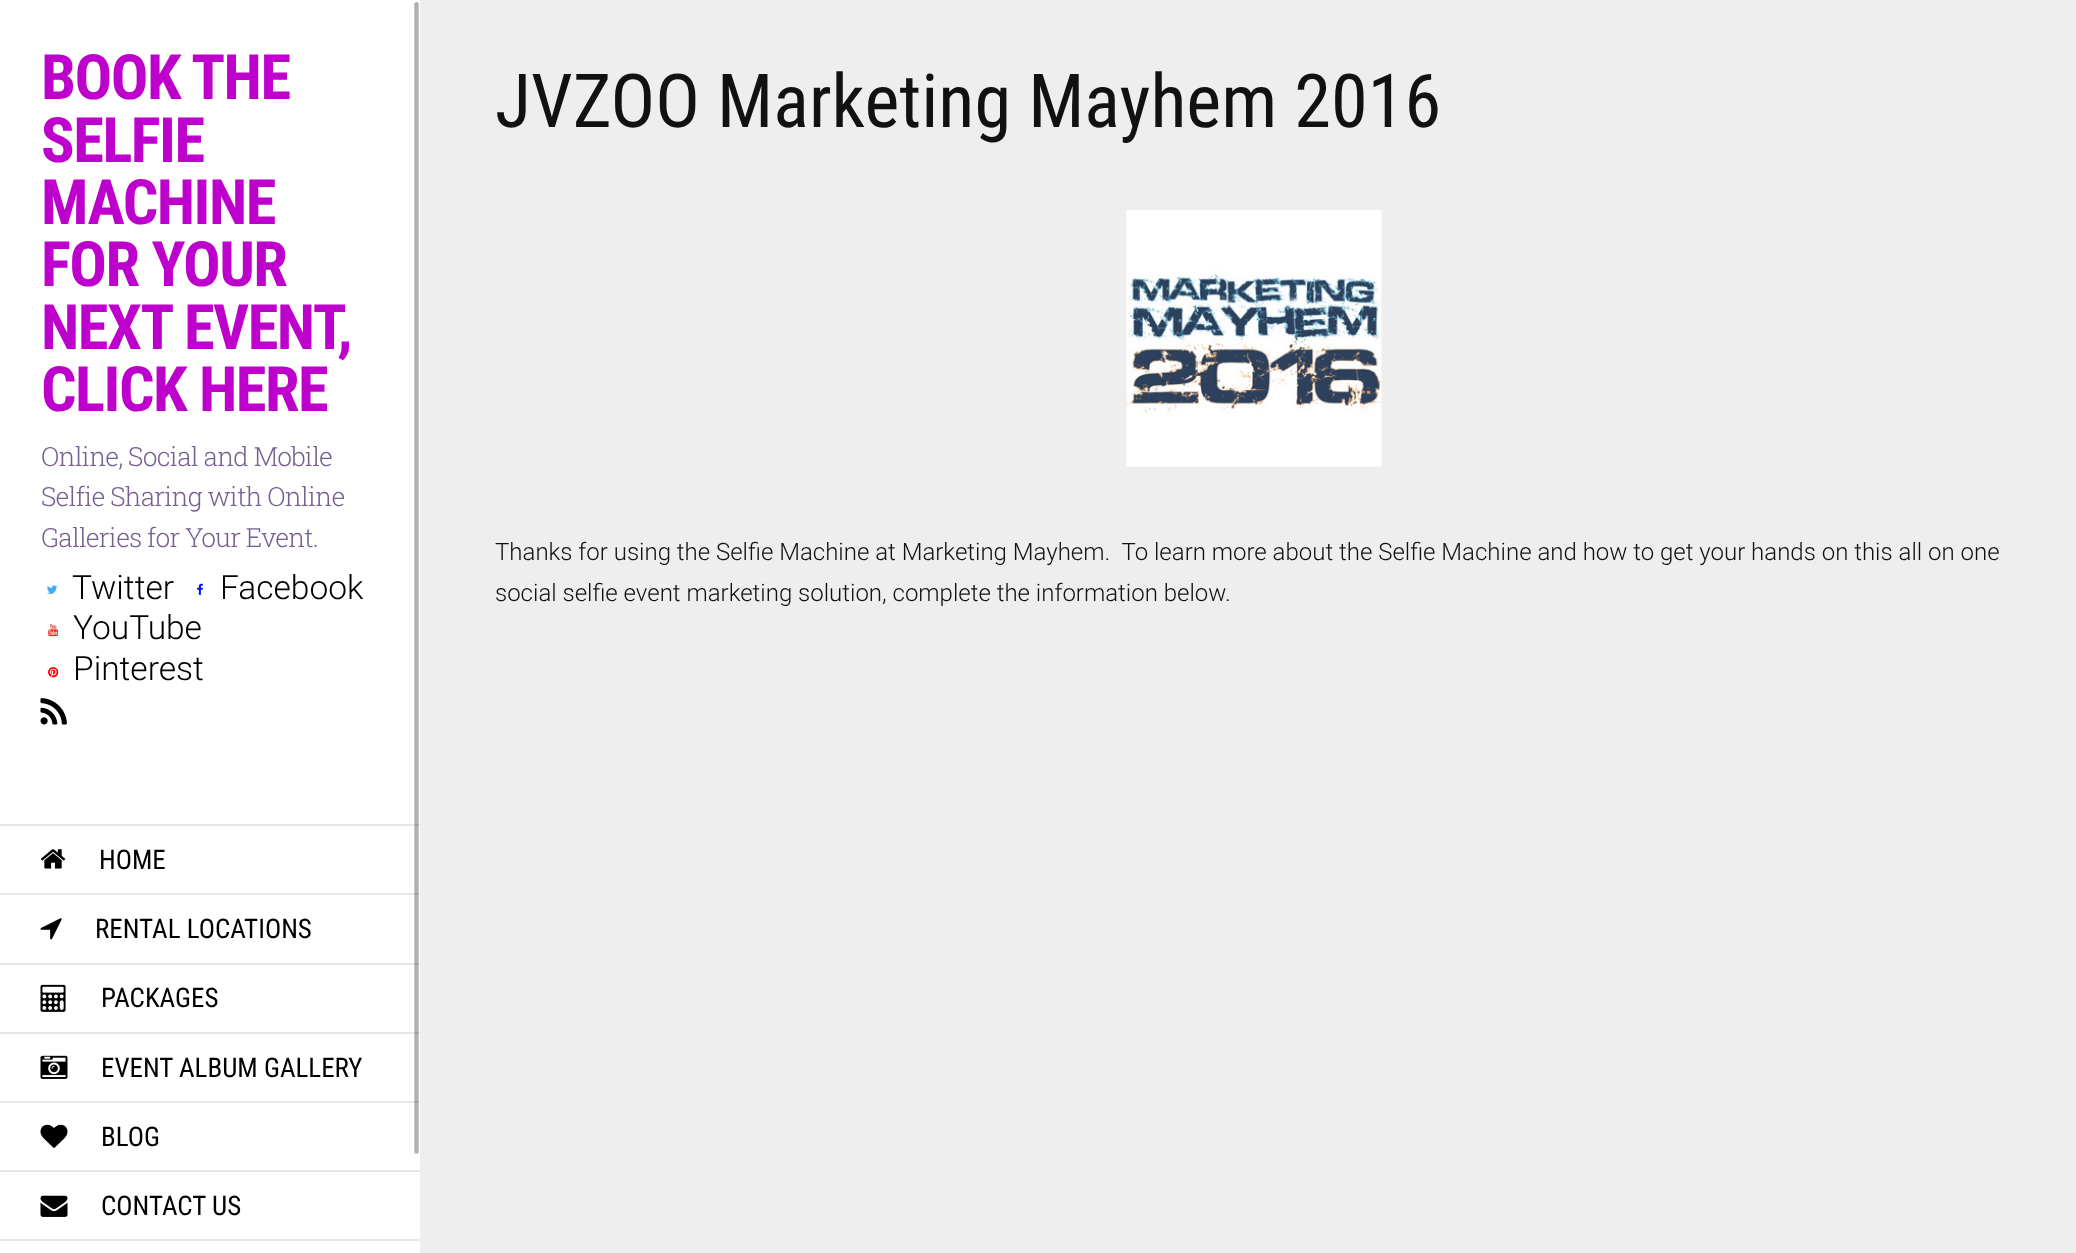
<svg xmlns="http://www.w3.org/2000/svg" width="2076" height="1253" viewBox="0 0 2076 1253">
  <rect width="100%" height="100%" fill="#eeeeee"/>
  <rect x="0" y="0" width="420" height="1253" fill="#ffffff"/>
  <text x="41" y="99" font-family="Roboto Condensed" font-size="62.5" font-weight="bold" letter-spacing="-1.5" fill="#be00cc">BOOK THE</text>
  <text x="41" y="162" font-family="Roboto Condensed" font-size="62.5" font-weight="bold" letter-spacing="-1.5" fill="#be00cc">SELFIE</text>
  <text x="41" y="224" font-family="Roboto Condensed" font-size="62.5" font-weight="bold" letter-spacing="-1.5" fill="#be00cc">MACHINE</text>
  <text x="41" y="286" font-family="Roboto Condensed" font-size="62.5" font-weight="bold" letter-spacing="-1.5" fill="#be00cc">FOR YOUR</text>
  <text x="41" y="349" font-family="Roboto Condensed" font-size="62.5" font-weight="bold" letter-spacing="-1.5" fill="#be00cc">NEXT EVENT,</text>
  <text x="41" y="411" font-family="Roboto Condensed" font-size="62.5" font-weight="bold" letter-spacing="-1.5" fill="#be00cc">CLICK HERE</text>
  <text x="41" y="466" font-family="Roboto Slab" font-size="26.4" font-weight="300" letter-spacing="-0.8" fill="#766091">Online, Social and Mobile</text>
  <text x="41" y="506" font-family="Roboto Slab" font-size="26.4" font-weight="300" letter-spacing="-0.8" fill="#766091">Selfie Sharing with Online</text>
  <text x="41" y="547" font-family="Roboto Slab" font-size="26.4" font-weight="300" letter-spacing="-0.8" fill="#766091">Galleries for Your Event.</text>
  <image x="47" y="585" width="11" height="9" href="img1.png"/>
  <text x="72" y="599" font-family="Roboto" font-size="33.5" font-weight="300" fill="#000000">Twitter</text>
  <image x="197" y="583" width="6" height="12" href="img2.png"/>
  <text x="220" y="599" font-family="Roboto" font-size="33.5" font-weight="300" fill="#000000">Facebook</text>
  <image x="48" y="624" width="11" height="13" href="img3.png"/>
  <text x="73" y="639" font-family="Roboto" font-size="33.5" font-weight="300" fill="#000000">YouTube</text>
  <image x="48" y="667" width="11" height="11" href="img4.png"/>
  <text x="73" y="680" font-family="Roboto" font-size="33.5" font-weight="300" fill="#000000">Pinterest</text>
  <image x="40" y="698" width="27" height="27" href="img5.png"/>
  <rect x="0" y="824" width="420" height="2" fill="#e6e6e6"/>
  <rect x="0" y="893" width="420" height="2" fill="#e6e6e6"/>
  <image x="41" y="849" width="25" height="20" href="img6.png"/>
  <text x="99" y="869" font-family="Roboto Condensed" font-size="27" fill="#000000">HOME</text>
  <rect x="0" y="963" width="420" height="2" fill="#e6e6e6"/>
  <image x="40" y="918" width="22" height="22" href="img7.png"/>
  <text x="95" y="938" font-family="Roboto Condensed" font-size="27" fill="#000000">RENTAL LOCATIONS</text>
  <rect x="0" y="1032" width="420" height="2" fill="#e6e6e6"/>
  <image x="40" y="984" width="26" height="28" href="img8.png"/>
  <text x="101" y="1007" font-family="Roboto Condensed" font-size="27" fill="#000000">PACKAGES</text>
  <rect x="0" y="1101" width="420" height="2" fill="#e6e6e6"/>
  <image x="40" y="1055" width="28" height="24" href="img9.png"/>
  <text x="101" y="1077" font-family="Roboto Condensed" font-size="27" fill="#000000">EVENT ALBUM GALLERY</text>
  <rect x="0" y="1170" width="420" height="2" fill="#e6e6e6"/>
  <image x="40" y="1124" width="28" height="24" href="img10.png"/>
  <text x="101" y="1146" font-family="Roboto Condensed" font-size="27" fill="#000000">BLOG</text>
  <rect x="0" y="1239" width="420" height="2" fill="#e6e6e6"/>
  <image x="40" y="1195" width="28" height="22" href="img11.png"/>
  <text x="101" y="1215" font-family="Roboto Condensed" font-size="27" fill="#000000">CONTACT US</text>
  <rect x="414" y="2" width="5" height="1152" rx="2.5" fill="#424242" fill-opacity="0.42"/>
  <rect x="414" y="1" width="5" height="1153" rx="2.5" fill="none" stroke="#ffffff" stroke-opacity="0.3" stroke-width="2"/>
  <text x="495" y="127" font-family="Roboto Condensed" font-size="74.4" fill="#111111">JVZOO Marketing Mayhem 2016</text>
  <image x="1126" y="210" width="256" height="257" href="img12.png"/>
  <text x="495" y="560" font-family="Roboto" font-size="24" font-weight="300" fill="#111111" xml:space="preserve">Thanks for using the Selfie Machine at Marketing Mayhem.  To learn more about the Selfie Machine and how to get your hands on this all on one</text>
  <text x="495" y="601" font-family="Roboto" font-size="24" font-weight="300" fill="#111111">social selfie event marketing solution, complete the information below.</text>
</svg>
